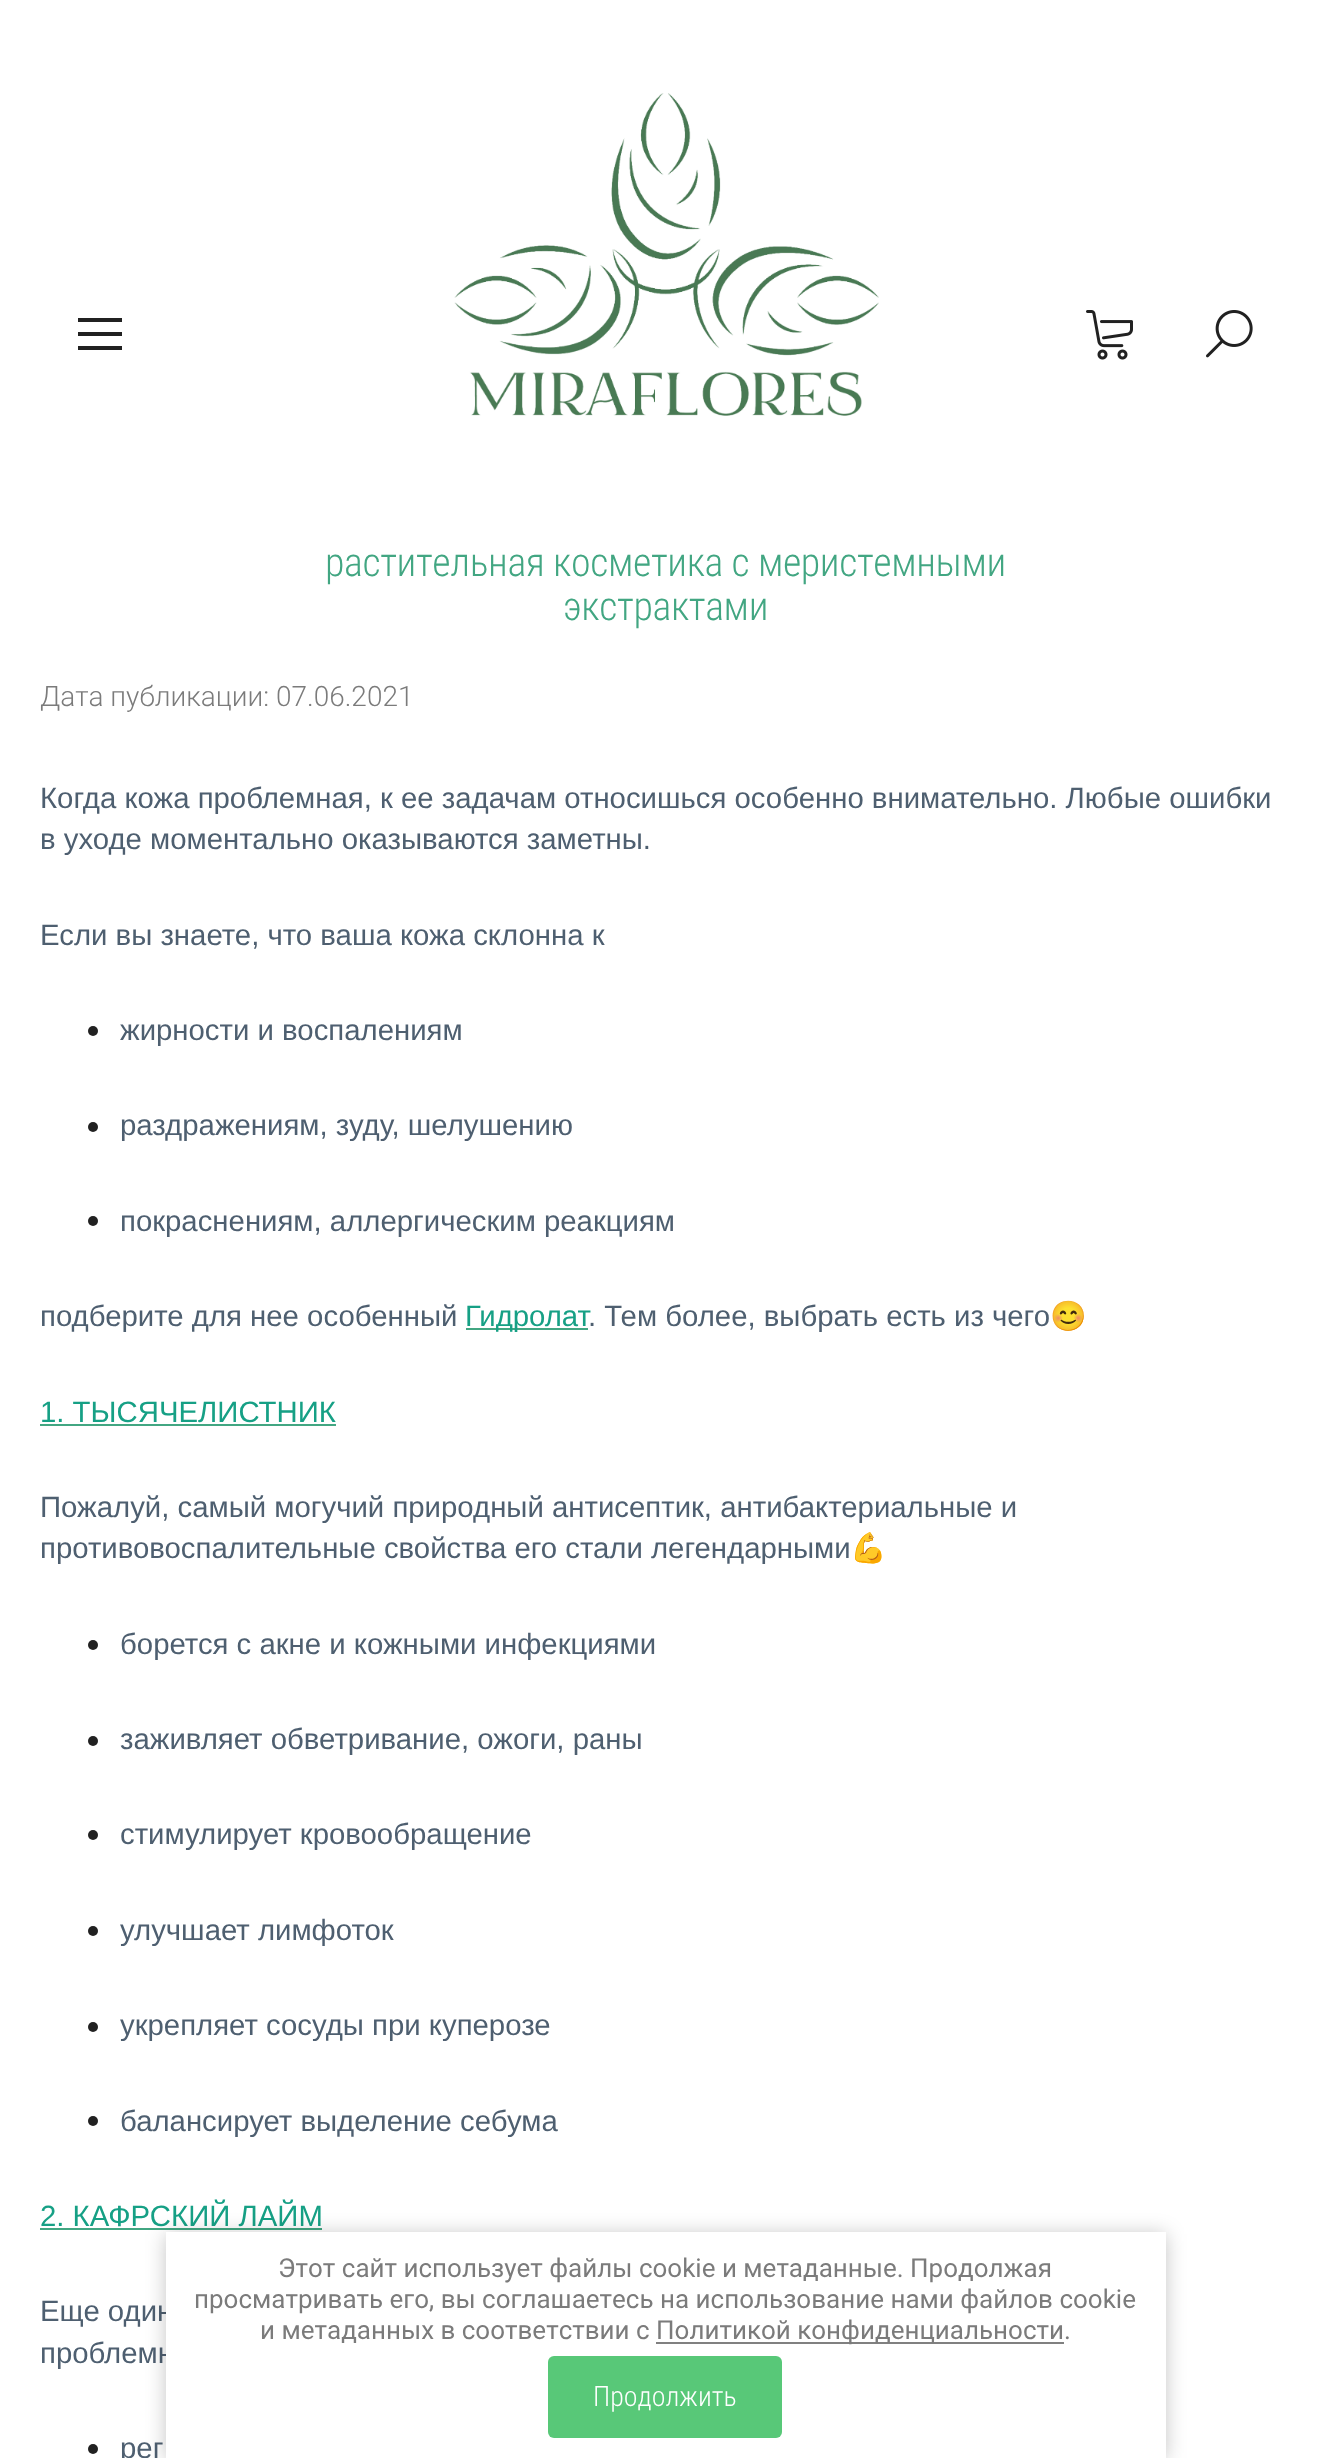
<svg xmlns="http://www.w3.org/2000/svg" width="1329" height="2458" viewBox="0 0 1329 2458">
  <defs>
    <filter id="blur1" x="-50%" y="-200%" width="200%" height="500%"><feGaussianBlur stdDeviation="10"/></filter>
  </defs>
  <rect width="100%" height="100%" fill="#ffffff"/>
  <rect x="78" y="332" width="44" height="4" fill="#212121"/>
  <rect x="78" y="318" width="44" height="4" fill="#212121"/>
  <rect x="78" y="346" width="44" height="4" fill="#212121"/>
  <image x="1086" y="310" width="47" height="50" href="img1.png"/>
  <image x="1206" y="310" width="47" height="48" href="img2.png"/>
  <image x="454" y="93" width="425" height="323" href="img3.png"/>
  <text x="325" y="576" font-family="Roboto Condensed" font-size="40" font-weight="300" letter-spacing="-0.4" fill="#42a682">растительная косметика с меристемными</text>
  <text x="563" y="620" font-family="Roboto Condensed" font-size="40" font-weight="300" letter-spacing="-0.4" fill="#42a682">экстрактами</text>
  <text x="40" y="706" font-family="Roboto" font-size="28" font-weight="300" fill="#7b7b7b">Дата публикации: 07.06.2021</text>
  <text x="40" y="808" font-family="Liberation Sans" font-size="29.35" fill="#4e5f70">Когда кожа проблемная, к ее задачам относишься особенно внимательно. Любые ошибки</text>
  <text x="40" y="849" font-family="Liberation Sans" font-size="29.35" fill="#4e5f70">в уходе моментально оказываются заметны.</text>
  <text x="40" y="945" font-family="Liberation Sans" font-size="29.35" fill="#4e5f70">Если вы знаете, что ваша кожа склонна к</text>
  <circle cx="93" cy="1031" r="5" fill="#212121"/>
  <text x="120" y="1040" font-family="Liberation Sans" font-size="29.35" fill="#4e5f70">жирности и воспалениям</text>
  <circle cx="93" cy="1127" r="5" fill="#212121"/>
  <text x="120" y="1135" font-family="Liberation Sans" font-size="29.35" fill="#4e5f70">раздражениям, зуду, шелушению</text>
  <circle cx="93" cy="1221" r="5" fill="#212121"/>
  <text x="120" y="1231" font-family="Liberation Sans" font-size="29.35" fill="#4e5f70">покраснениям, аллергическим реакциям</text>
  <text x="40" y="1326" font-family="Liberation Sans" font-size="29.35" fill="#4e5f70">подберите для нее особенный</text>
  <rect x="466" y="1328" width="122" height="2" fill="#42a682"/>
  <text x="465" y="1326" font-family="Liberation Sans" font-size="29.35" fill="#16a085">Гидролат</text>
  <text x="588" y="1326" font-family="Liberation Sans" font-size="29.35" fill="#4e5f70">. Тем более, выбрать есть из чего</text>
  <text x="1050" y="1326" font-family="Noto Color Emoji" font-size="29.35" fill="#4e5f70">😊</text>
  <text x="40" y="1422" font-family="Liberation Sans" font-size="29.35" fill="#16a085">1. ТЫСЯЧЕЛИСТНИК</text>
  <rect x="40" y="1424" width="296" height="2" fill="#42a682"/>
  <text x="40" y="1517" font-family="Liberation Sans" font-size="29.35" fill="#4e5f70">Пожалуй, самый могучий природный антисептик, антибактериальные и</text>
  <text x="40" y="1558" font-family="Liberation Sans" font-size="29.35" fill="#4e5f70">противовоспалительные свойства его стали легендарными</text>
  <text x="850" y="1558" font-family="Noto Color Emoji" font-size="29.35" fill="#4e5f70">💪</text>
  <circle cx="93" cy="1645" r="5" fill="#212121"/>
  <text x="120" y="1654" font-family="Liberation Sans" font-size="29.35" fill="#4e5f70">борется с акне и кожными инфекциями</text>
  <circle cx="93" cy="1741" r="5" fill="#212121"/>
  <text x="120" y="1749" font-family="Liberation Sans" font-size="29.35" fill="#4e5f70">заживляет обветривание, ожоги, раны</text>
  <circle cx="93" cy="1835" r="5" fill="#212121"/>
  <text x="120" y="1844" font-family="Liberation Sans" font-size="29.35" fill="#4e5f70">стимулирует кровообращение</text>
  <circle cx="93" cy="1931" r="5" fill="#212121"/>
  <text x="120" y="1940" font-family="Liberation Sans" font-size="29.35" fill="#4e5f70">улучшает лимфоток</text>
  <circle cx="93" cy="2027" r="5" fill="#212121"/>
  <text x="120" y="2035" font-family="Liberation Sans" font-size="29.35" fill="#4e5f70">укрепляет сосуды при куперозе</text>
  <circle cx="93" cy="2121" r="5" fill="#212121"/>
  <text x="120" y="2131" font-family="Liberation Sans" font-size="29.35" fill="#4e5f70">балансирует выделение себума</text>
  <text x="40" y="2226" font-family="Liberation Sans" font-size="29.35" fill="#16a085">2. КАФРСКИЙ ЛАЙМ</text>
  <rect x="40" y="2228" width="282" height="2" fill="#42a682"/>
  <text x="40" y="2321" font-family="Liberation Sans" font-size="29.35" fill="#4e5f70">Еще один</text>
  <text x="40" y="2363" font-family="Liberation Sans" font-size="29.35" fill="#4e5f70">проблемн</text>
  <circle cx="93" cy="2449" r="5" fill="#212121"/>
  <text x="120" y="2458" font-family="Liberation Sans" font-size="29.35" fill="#4e5f70">рег</text>
  <rect x="166" y="2234" width="1000" height="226" fill="#000000" fill-opacity="0.23" filter="url(#blur1)"/>
  <rect x="166" y="2232" width="1000" height="226" fill="#ffffff"/>
  <text x="278" y="2277" font-family="roboto" font-size="26" fill="#7b7b7b">Этот сайт использует файлы cookie и метаданные. Продолжая</text>
  <text x="194" y="2308" font-family="roboto" font-size="26" fill="#7b7b7b">просматривать его, вы соглашаетесь на использование нами файлов cookie</text>
  <text x="260" y="2339" font-family="roboto" font-size="26" fill="#7b7b7b">и метаданных в соответствии с</text>
  <rect x="656" y="2342" width="408" height="2" fill="#808080"/>
  <text x="656" y="2339" font-family="roboto" font-size="26" fill="#7b7b7b">Политикой конфиденциальности.</text>
  <rect x="548" y="2356" width="234" height="82" rx="6" fill="#58c878"/>
  <text x="593" y="2406" font-family="Roboto Condensed" font-size="28" font-weight="300" fill="#ffffff">Продолжить</text>
</svg>
